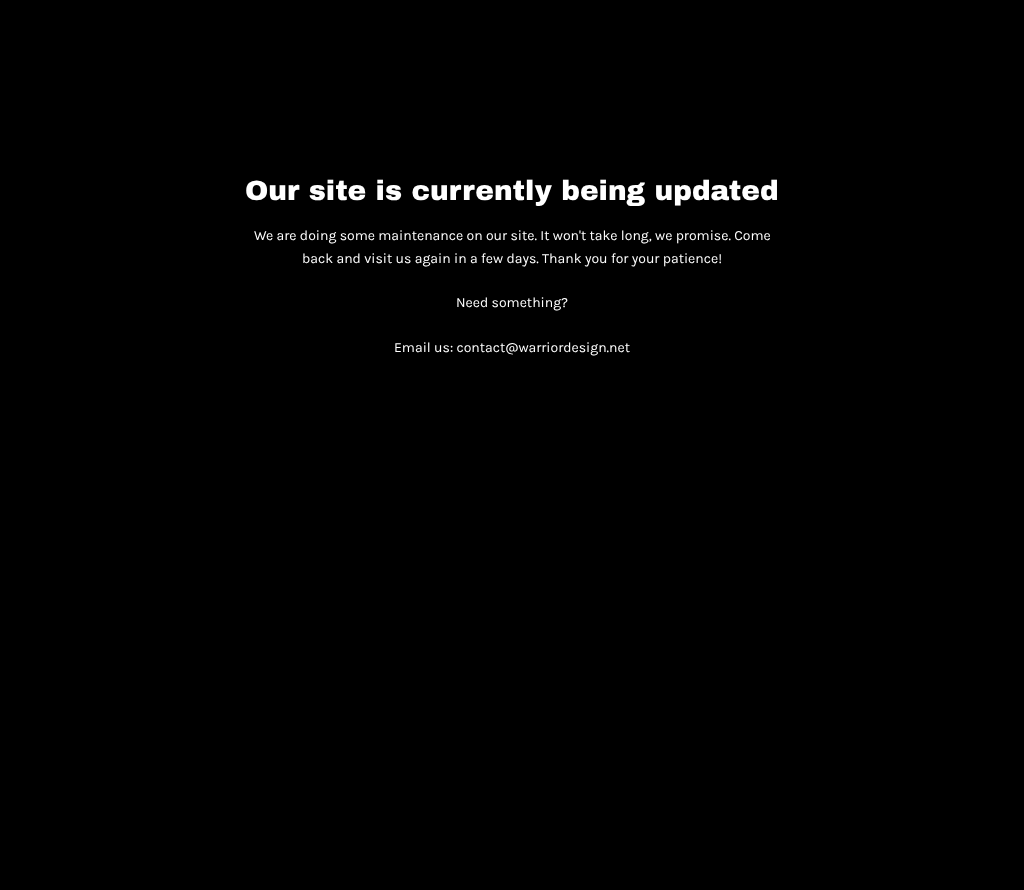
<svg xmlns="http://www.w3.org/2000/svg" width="1024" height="890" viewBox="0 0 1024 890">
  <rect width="100%" height="100%" fill="#000000"/>
  <text x="245" y="200" font-family="Archivo Black" font-size="28" font-weight="900" fill="#ffffff">Our site is currently being updated</text>
  <text x="254" y="240" font-family="Karla" font-size="14" fill="#ffffff">We are doing some maintenance on our site. It won't take long, we promise. Come</text>
  <text x="302" y="263" font-family="Karla" font-size="14" fill="#ffffff">back and visit us again in a few days. Thank you for your patience!</text>
  <text x="456" y="307" font-family="Karla" font-size="14" fill="#ffffff">Need something?</text>
  <text x="394" y="352" font-family="Karla" font-size="14" fill="#ffffff">Email us: contact@warriordesign.net</text>
</svg>
